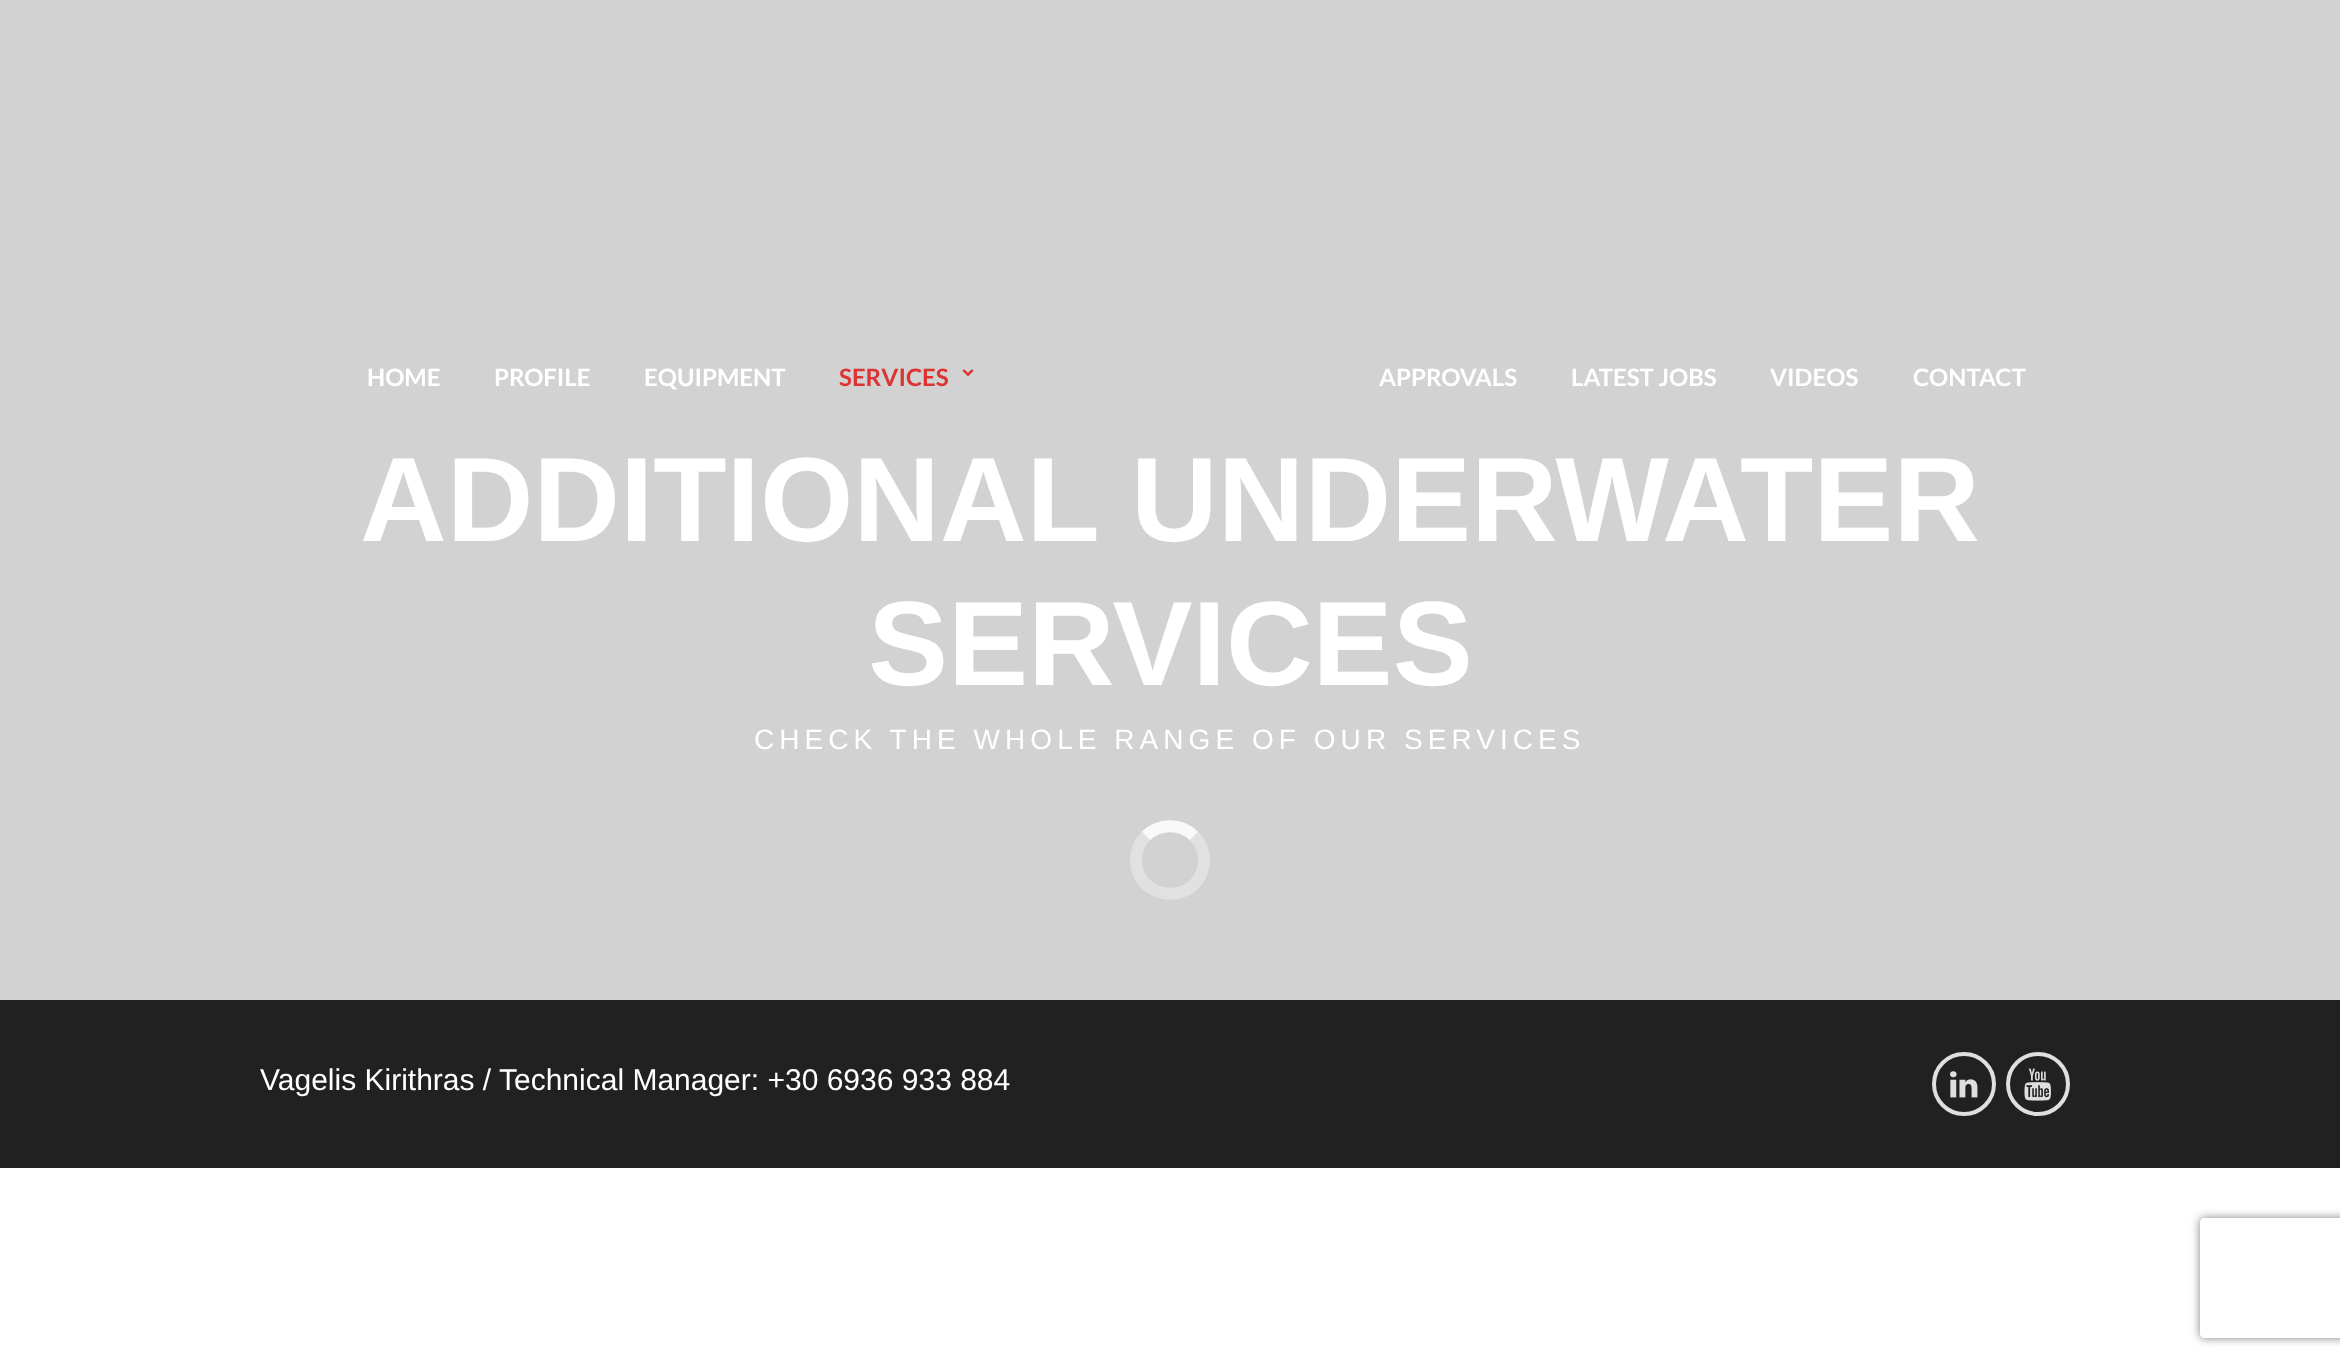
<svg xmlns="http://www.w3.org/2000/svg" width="2340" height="1366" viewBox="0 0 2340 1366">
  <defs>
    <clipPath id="clip1"><path d="M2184 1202H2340V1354H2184ZM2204 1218H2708C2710 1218 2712 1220 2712 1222V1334C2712 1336 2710 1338 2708 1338H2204C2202 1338 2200 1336 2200 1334V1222C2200 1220 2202 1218 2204 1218Z" clip-rule="evenodd"/></clipPath>
    <filter id="blur1" x="-50%" y="-200%" width="200%" height="500%"><feGaussianBlur stdDeviation="5"/></filter>
  </defs>
  <rect width="100%" height="100%" fill="#ffffff"/>
  <rect x="0" y="0" width="2340" height="1000" fill="#d2d2d2"/>
  <text x="367" y="386" font-family="Lato" font-size="24" font-weight="bold" fill="#ffffff">HOME</text>
  <text x="494" y="386" font-family="Lato" font-size="24" font-weight="bold" fill="#ffffff">PROFILE</text>
  <text x="644" y="386" font-family="Lato" font-size="24" font-weight="bold" fill="#ffffff">EQUIPMENT</text>
  <text x="839" y="386" font-family="Lato" font-size="24" font-weight="bold" fill="#dd3333">SERVICES</text>
  <image x="962" y="369" width="12" height="8" href="img1.png"/>
  <text x="1379" y="386" font-family="Lato" font-size="24" font-weight="bold" fill="#ffffff">APPROVALS</text>
  <text x="1571" y="386" font-family="Lato" font-size="24" font-weight="bold" fill="#ffffff">LATEST JOBS</text>
  <text x="1770" y="386" font-family="Lato" font-size="24" font-weight="bold" fill="#ffffff">VIDEOS</text>
  <text x="1913" y="386" font-family="Lato" font-size="24" font-weight="bold" fill="#ffffff">CONTACT</text>
  <text x="360" y="541" font-family="Liberation Sans" font-size="120" font-weight="bold" fill="#ffffff">ADDITIONAL UNDERWATER</text>
  <text x="868" y="685" font-family="Liberation Sans" font-size="120" font-weight="bold" fill="#ffffff">SERVICES</text>
  <text x="754" y="749" font-family="Liberation Sans" font-size="28" letter-spacing="5.05" fill="#ffffff">CHECK THE WHOLE RANGE OF OUR SERVICES</text>
  <path d="M1146 836C1159 823 1181 823 1194 836" fill="none" stroke="#f9f9f9" stroke-width="12"/>
  <path d="M1194 836C1202 844 1205.5 855.5 1203.5 866.5C1195.5 906.5 1136 900.5 1136 860C1136 851 1139.5 842.5 1146 836" fill="none" stroke="#ffffff" stroke-opacity="0.35" stroke-width="12"/>
  <rect x="0" y="1000" width="2340" height="168" fill="#212121"/>
  <text x="260" y="1090" font-family="Liberation Sans" font-size="30" fill="#ffffff">Vagelis Kirithras / Technical Manager: +30 6936 933 884</text>
  <circle cx="1964" cy="1084" r="30" fill="none" stroke="#dfdfdf" stroke-width="4"/>
  <image x="1950" y="1071" width="28" height="27" href="img2.png"/>
  <circle cx="2038" cy="1084" r="30" fill="none" stroke="#dfdfdf" stroke-width="4"/>
  <image x="2024" y="1068" width="27" height="33" href="img3.png"/>
  <g clip-path="url(#clip1)">
    <rect x="2200" y="1218" width="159" height="120" rx="4" fill="#808080" filter="url(#blur1)"/>
  </g>
</svg>
